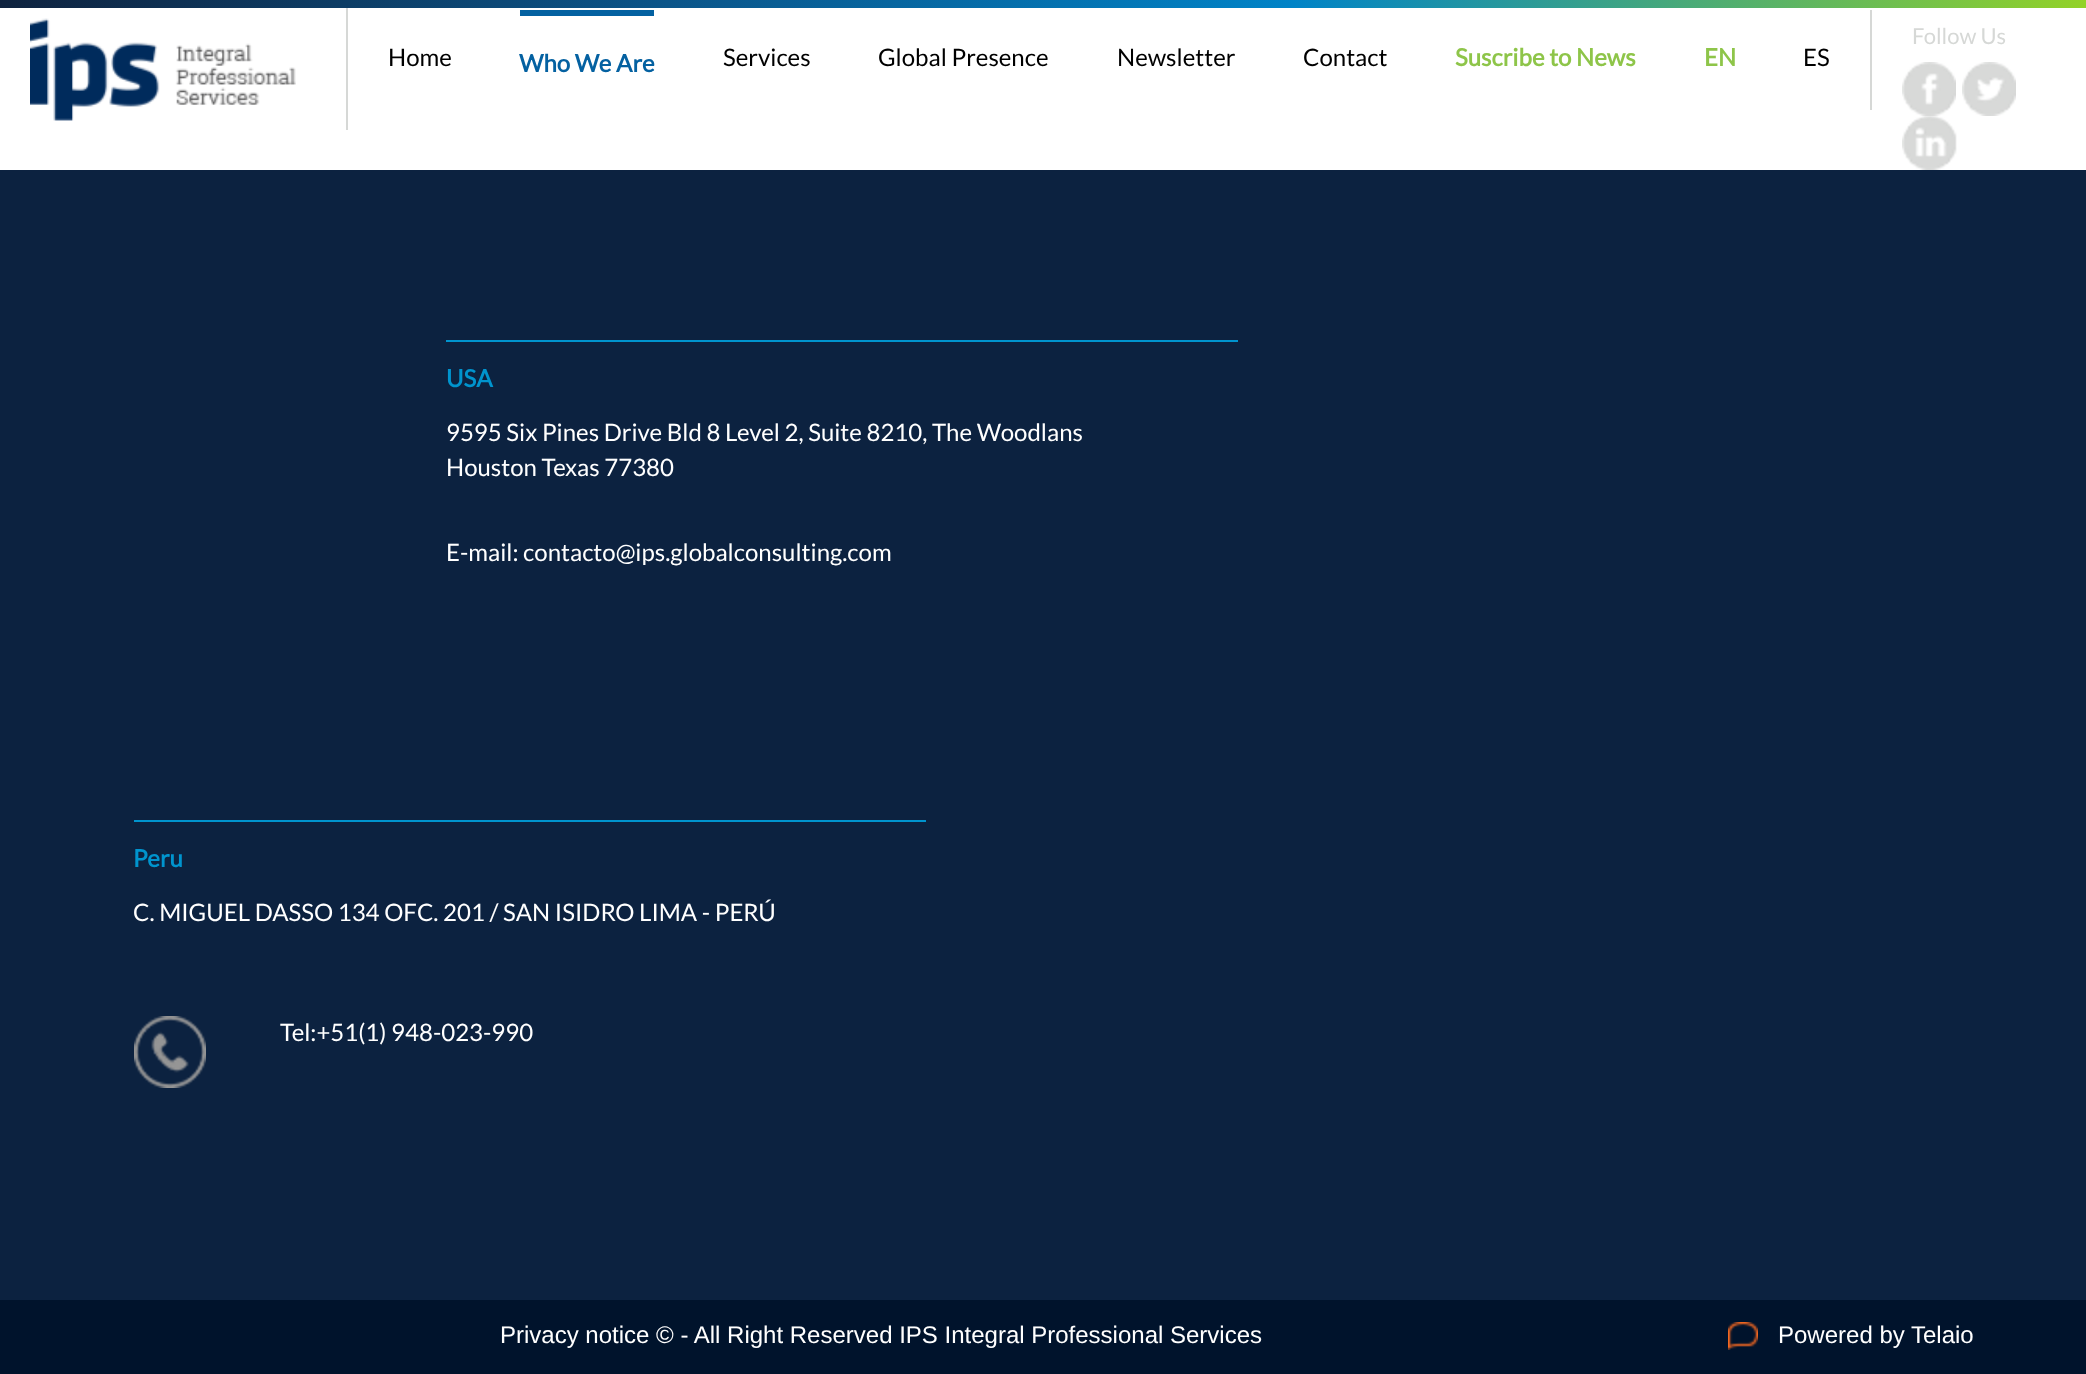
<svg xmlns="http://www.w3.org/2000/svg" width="2086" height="1374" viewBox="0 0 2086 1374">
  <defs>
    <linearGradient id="g1" gradientUnits="userSpaceOnUse" x1="0" y1="4" x2="2086" y2="4"><stop offset="0" stop-color="#0f233f"/><stop offset="0.32" stop-color="#0b5589"/><stop offset="0.62" stop-color="#0083c7"/><stop offset="1" stop-color="#93d228"/></linearGradient>
  </defs>
  <rect width="100%" height="100%" fill="#0c2240"/>
  <rect x="0" y="8" width="2086" height="162" fill="#ffffff"/>
  <rect x="346" y="0" width="2" height="130" fill="#d6d8d6"/>
  <rect x="0" y="0" width="2086" height="8" fill="url(#g1)"/>
  <image x="30" y="18" width="266" height="103" href="img1.png"/>
  <text x="1912" y="44" font-family="Lato" font-size="22" fill="#d6d8d6">Follow Us</text>
  <image x="1902" y="62" width="54" height="54" href="img2.png"/>
  <image x="1962" y="62" width="54" height="54" href="img3.png"/>
  <image x="1902" y="116" width="55" height="54" href="img4.png"/>
  <text x="388" y="66" font-family="Lato" font-size="24" fill="#000000">Home</text>
  <rect x="520" y="10" width="134" height="6" fill="#0461a1"/>
  <text x="519" y="72" font-family="Lato" font-size="24" font-weight="bold" fill="#0461a1">Who We Are</text>
  <text x="723" y="66" font-family="Lato" font-size="24" fill="#000000">Services</text>
  <text x="878" y="66" font-family="Lato" font-size="24" fill="#000000">Global Presence</text>
  <text x="1117" y="66" font-family="Lato" font-size="24" fill="#000000">Newsletter</text>
  <text x="1303" y="66" font-family="Lato" font-size="24" fill="#000000">Contact</text>
  <text x="1455" y="66" font-family="Lato" font-size="24" font-weight="bold" fill="#8ec549">Suscribe to News</text>
  <text x="1704" y="66" font-family="Lato" font-size="24" font-weight="bold" fill="#8ec549">EN</text>
  <rect x="1870" y="10" width="2" height="100" fill="#d6d8d6"/>
  <text x="1803" y="66" font-family="Lato" font-size="24" fill="#000000">ES</text>
  <rect x="446" y="340" width="792" height="2" fill="#0094ce"/>
  <text x="446" y="387" font-family="Lato" font-size="24" font-weight="bold" fill="#0094ce">USA</text>
  <text x="446" y="441" font-family="Lato" font-size="24" fill="#ffffff">9595 Six Pines Drive Bld 8 Level 2, Suite 8210, The Woodlans</text>
  <text x="446" y="476" font-family="Lato" font-size="24" fill="#ffffff">Houston Texas 77380</text>
  <text x="446" y="561" font-family="Lato" font-size="24" fill="#ffffff">E-mail: contacto@ips.globalconsulting.com</text>
  <rect x="134" y="820" width="792" height="2" fill="#0094ce"/>
  <text x="133" y="867" font-family="Lato" font-size="24" font-weight="bold" fill="#0094ce">Peru</text>
  <text x="133" y="921" font-family="Lato" font-size="24" fill="#ffffff">C. MIGUEL DASSO 134 OFC. 201 / SAN ISIDRO LIMA - PERÚ</text>
  <image x="134" y="1016" width="72" height="72" href="img5.png"/>
  <text x="280" y="1041" font-family="Lato" font-size="24" fill="#ffffff">Tel:+51(1) 948-023-990</text>
  <rect x="0" y="1300" width="2086" height="74" fill="#00132c"/>
  <text x="500" y="1343" font-family="Liberation Sans" font-size="24" fill="#ffffff">Privacy notice © - All Right Reserved IPS Integral Professional Services</text>
  <image x="1728" y="1322" width="30" height="28" href="img6.png"/>
  <text x="1778" y="1343" font-family="Liberation Sans" font-size="24" fill="#ffffff">Powered by Telaio</text>
</svg>
